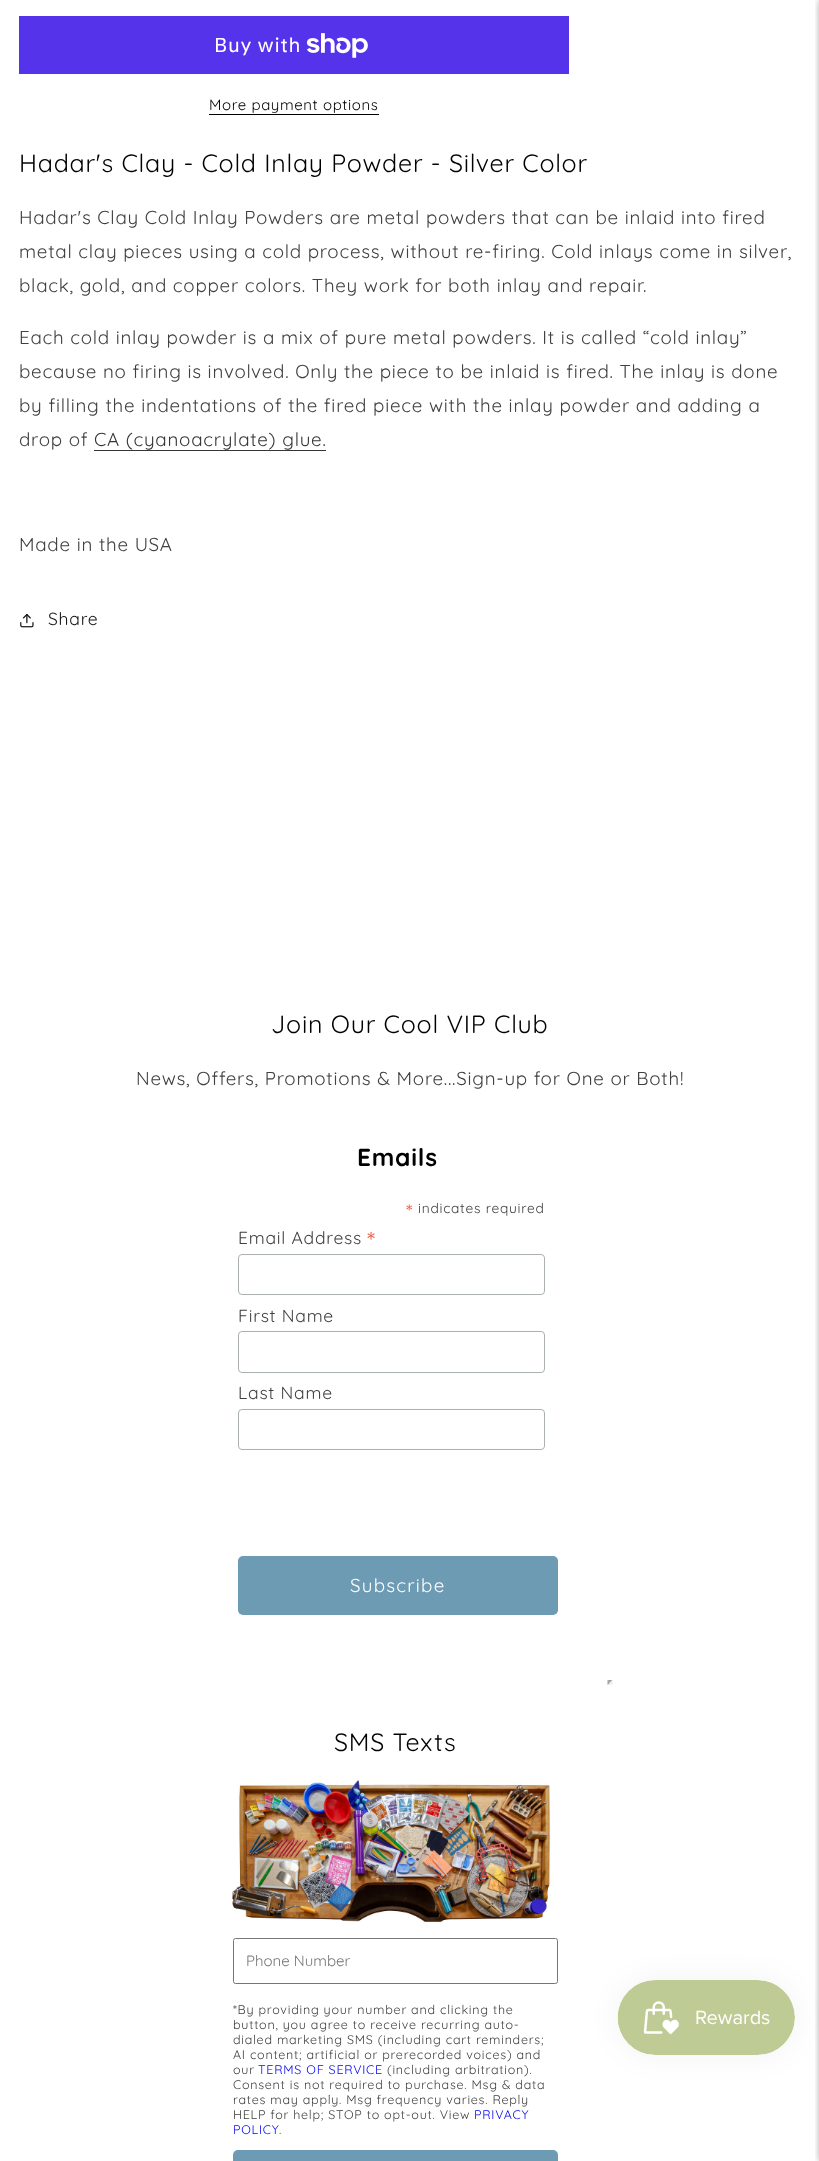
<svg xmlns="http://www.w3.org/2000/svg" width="819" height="2161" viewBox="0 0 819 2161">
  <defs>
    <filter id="blur1" x="-50%" y="-200%" width="200%" height="500%"><feGaussianBlur stdDeviation="4.5"/></filter>
    <filter id="blur2" x="-50%" y="-200%" width="200%" height="500%"><feGaussianBlur stdDeviation="15.5"/></filter>
  </defs>
  <rect width="100%" height="100%" fill="#ffffff"/>
  <rect x="19" y="16" width="550" height="58" fill="#5433eb"/>
  <text x="214" y="52" font-family="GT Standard" font-size="20" letter-spacing="0.75" fill="#ffffff">Buy with</text>
  <image x="306" y="33" width="62" height="25" href="img1.png"/>
  <text x="209" y="110" font-family="Quicksand" font-size="15" letter-spacing="0.6" fill="#000000">More payment options</text>
  <rect x="209" y="114" width="170" height="1" fill="#000000"/>
  <text x="19" y="172" font-family="Quicksand" font-size="25" letter-spacing="0.75" fill="#000000">Hadar's Clay - Cold Inlay Powder - Silver Color</text>
  <text x="19" y="224" font-family="Quicksand" font-size="18.75" letter-spacing="0.75" fill="#404040">Hadar's Clay Cold Inlay Powders are metal powders that can be inlaid into fired</text>
  <text x="19" y="258" font-family="Quicksand" font-size="18.75" letter-spacing="0.75" fill="#404040">metal clay pieces using a cold process, without re-firing. Cold inlays come in silver,</text>
  <text x="19" y="292" font-family="Quicksand" font-size="18.75" letter-spacing="0.75" fill="#404040">black, gold, and copper colors. They work for both inlay and repair.</text>
  <text x="19" y="344" font-family="Quicksand" font-size="18.75" letter-spacing="0.75" fill="#404040">Each cold inlay powder is a mix of pure metal powders. It is called “cold inlay”</text>
  <text x="19" y="378" font-family="Quicksand" font-size="18.75" letter-spacing="0.75" fill="#404040">because no firing is involved. Only the piece to be inlaid is fired. The inlay is done</text>
  <text x="19" y="412" font-family="Quicksand" font-size="18.75" letter-spacing="0.75" fill="#404040">by filling the indentations of the fired piece with the inlay powder and adding a</text>
  <text x="19" y="446" font-family="Quicksand" font-size="18.75" letter-spacing="0.75" fill="#404040">drop of</text>
  <text x="94" y="446" font-family="Quicksand" font-size="18.75" letter-spacing="0.75" fill="#363636">CA (cyanoacrylate) glue.</text>
  <rect x="94" y="450" width="232" height="1" fill="#363636"/>
  <text x="19" y="551" font-family="Quicksand" font-size="18.75" letter-spacing="0.75" fill="#404040">Made in the USA</text>
  <image x="20" y="613" width="14" height="15" href="img2.png"/>
  <text x="48" y="625" font-family="Quicksand" font-size="17.5" letter-spacing="0.75" fill="#121212">Share</text>
  <rect x="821" y="0" width="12" height="2161" fill="#000000" fill-opacity="0.5" filter="url(#blur1)"/>
  <text x="271" y="1033" font-family="Quicksand" font-size="25" letter-spacing="0.75" fill="#000000">Join Our Cool VIP Club</text>
  <text x="136" y="1085" font-family="Quicksand" font-size="18.75" letter-spacing="0.75" fill="#404040">News, Offers, Promotions &amp; More...Sign-up for One or Both!</text>
  <text x="357" y="1166" font-family="Quicksand" font-size="24.5" font-weight="bold" letter-spacing="0.75" fill="#000000">Emails</text>
  <text x="406" y="1219" font-family="Quicksand" font-size="21" letter-spacing="0.75" fill="#e85c41">*</text>
  <text x="418" y="1213" font-family="Quicksand" font-size="13.75" letter-spacing="0.75" fill="#404040">indicates required</text>
  <text x="238" y="1244" font-family="Quicksand" font-size="17.5" letter-spacing="0.75" fill="#404040">Email Address</text>
  <text x="367" y="1250" font-family="Quicksand" font-size="26" letter-spacing="0.75" fill="#e85c41">*</text>
  <rect x="238.5" y="1254.5" width="306" height="40" rx="3.5" fill="none" stroke="#abb0b2"/>
  <text x="238" y="1322" font-family="Quicksand" font-size="17.5" letter-spacing="0.75" fill="#404040">First Name</text>
  <rect x="238.5" y="1331.5" width="306" height="41" rx="3.5" fill="none" stroke="#abb0b2"/>
  <text x="238" y="1399" font-family="Quicksand" font-size="17.5" letter-spacing="0.75" fill="#404040">Last Name</text>
  <rect x="238.5" y="1409.5" width="306" height="40" rx="3.5" fill="none" stroke="#abb0b2"/>
  <rect x="238" y="1556" width="320" height="59" rx="5" fill="#6d9bb4"/>
  <text x="350" y="1592" font-family="Quicksand" font-size="18.75" letter-spacing="1.25" fill="#ffffff">Subscribe</text>
  <path d="M607.5 1680H612.5L610 1682.5Z" fill="#9f9f9f"/>
  <path d="M612.5 1680V1685L610 1682.5Z" fill="#eeeeee"/>
  <path d="M612.5 1685H607.5L610 1682.5Z" fill="#eeeeee"/>
  <path d="M607.5 1685V1680L610 1682.5Z" fill="#9f9f9f"/>
  <text x="334" y="1751" font-family="Quicksand" font-size="25" letter-spacing="0.75" fill="#000000">SMS Texts</text>
  <image x="232" y="1778" width="319" height="145" href="img3.png"/>
  <rect x="233.5" y="1938.5" width="324" height="45" rx="2" fill="none" stroke="#767676"/>
  <text x="246" y="1966" font-family="Quicksand" font-size="15" fill="#757575">Phone Number</text>
  <text x="233" y="2014" font-family="Quicksand" font-size="12.5" letter-spacing="0.75" fill="#404040">*By providing your number and clicking the</text>
  <text x="233" y="2029" font-family="Quicksand" font-size="12.5" letter-spacing="0.75" fill="#404040">button, you agree to receive recurring auto-</text>
  <text x="233" y="2044" font-family="Quicksand" font-size="12.5" letter-spacing="0.75" fill="#404040">dialed marketing SMS (including cart reminders;</text>
  <text x="233" y="2059" font-family="Quicksand" font-size="12.5" letter-spacing="0.75" fill="#404040">AI content; artificial or prerecorded voices) and</text>
  <text x="233" y="2074" font-family="Quicksand" font-size="12.5" letter-spacing="0.75" fill="#404040">our</text>
  <text x="258" y="2074" font-family="Quicksand" font-size="12.5" letter-spacing="0.75" fill="#0000ee">TERMS OF SERVICE</text>
  <text x="387" y="2074" font-family="Quicksand" font-size="12.5" letter-spacing="0.75" fill="#404040">(including arbitration).</text>
  <text x="233" y="2089" font-family="Quicksand" font-size="12.5" letter-spacing="0.75" fill="#404040">Consent is not required to purchase. Msg &amp; data</text>
  <text x="233" y="2104" font-family="Quicksand" font-size="12.5" letter-spacing="0.75" fill="#404040">rates may apply. Msg frequency varies. Reply</text>
  <text x="233" y="2119" font-family="Quicksand" font-size="12.5" letter-spacing="0.75" fill="#404040">HELP for help; STOP to opt-out. View</text>
  <text x="474" y="2119" font-family="Quicksand" font-size="12.5" letter-spacing="0.75" fill="#0000ee">PRIVACY</text>
  <text x="233" y="2134" font-family="Quicksand" font-size="12.5" letter-spacing="0.75" fill="#0000ee">POLICY</text>
  <text x="279" y="2134" font-family="Quicksand" font-size="12.5" letter-spacing="0.75" fill="#404040">.</text>
  <rect x="233" y="2150" width="325" height="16" rx="5" fill="#6d9bb4"/>
  <rect x="618" y="1980" width="177" height="75" rx="37.5" fill="#000000" fill-opacity="0.05" filter="url(#blur2)"/>
  <image x="617" y="1980" width="178" height="75" href="img4.png"/>
</svg>
